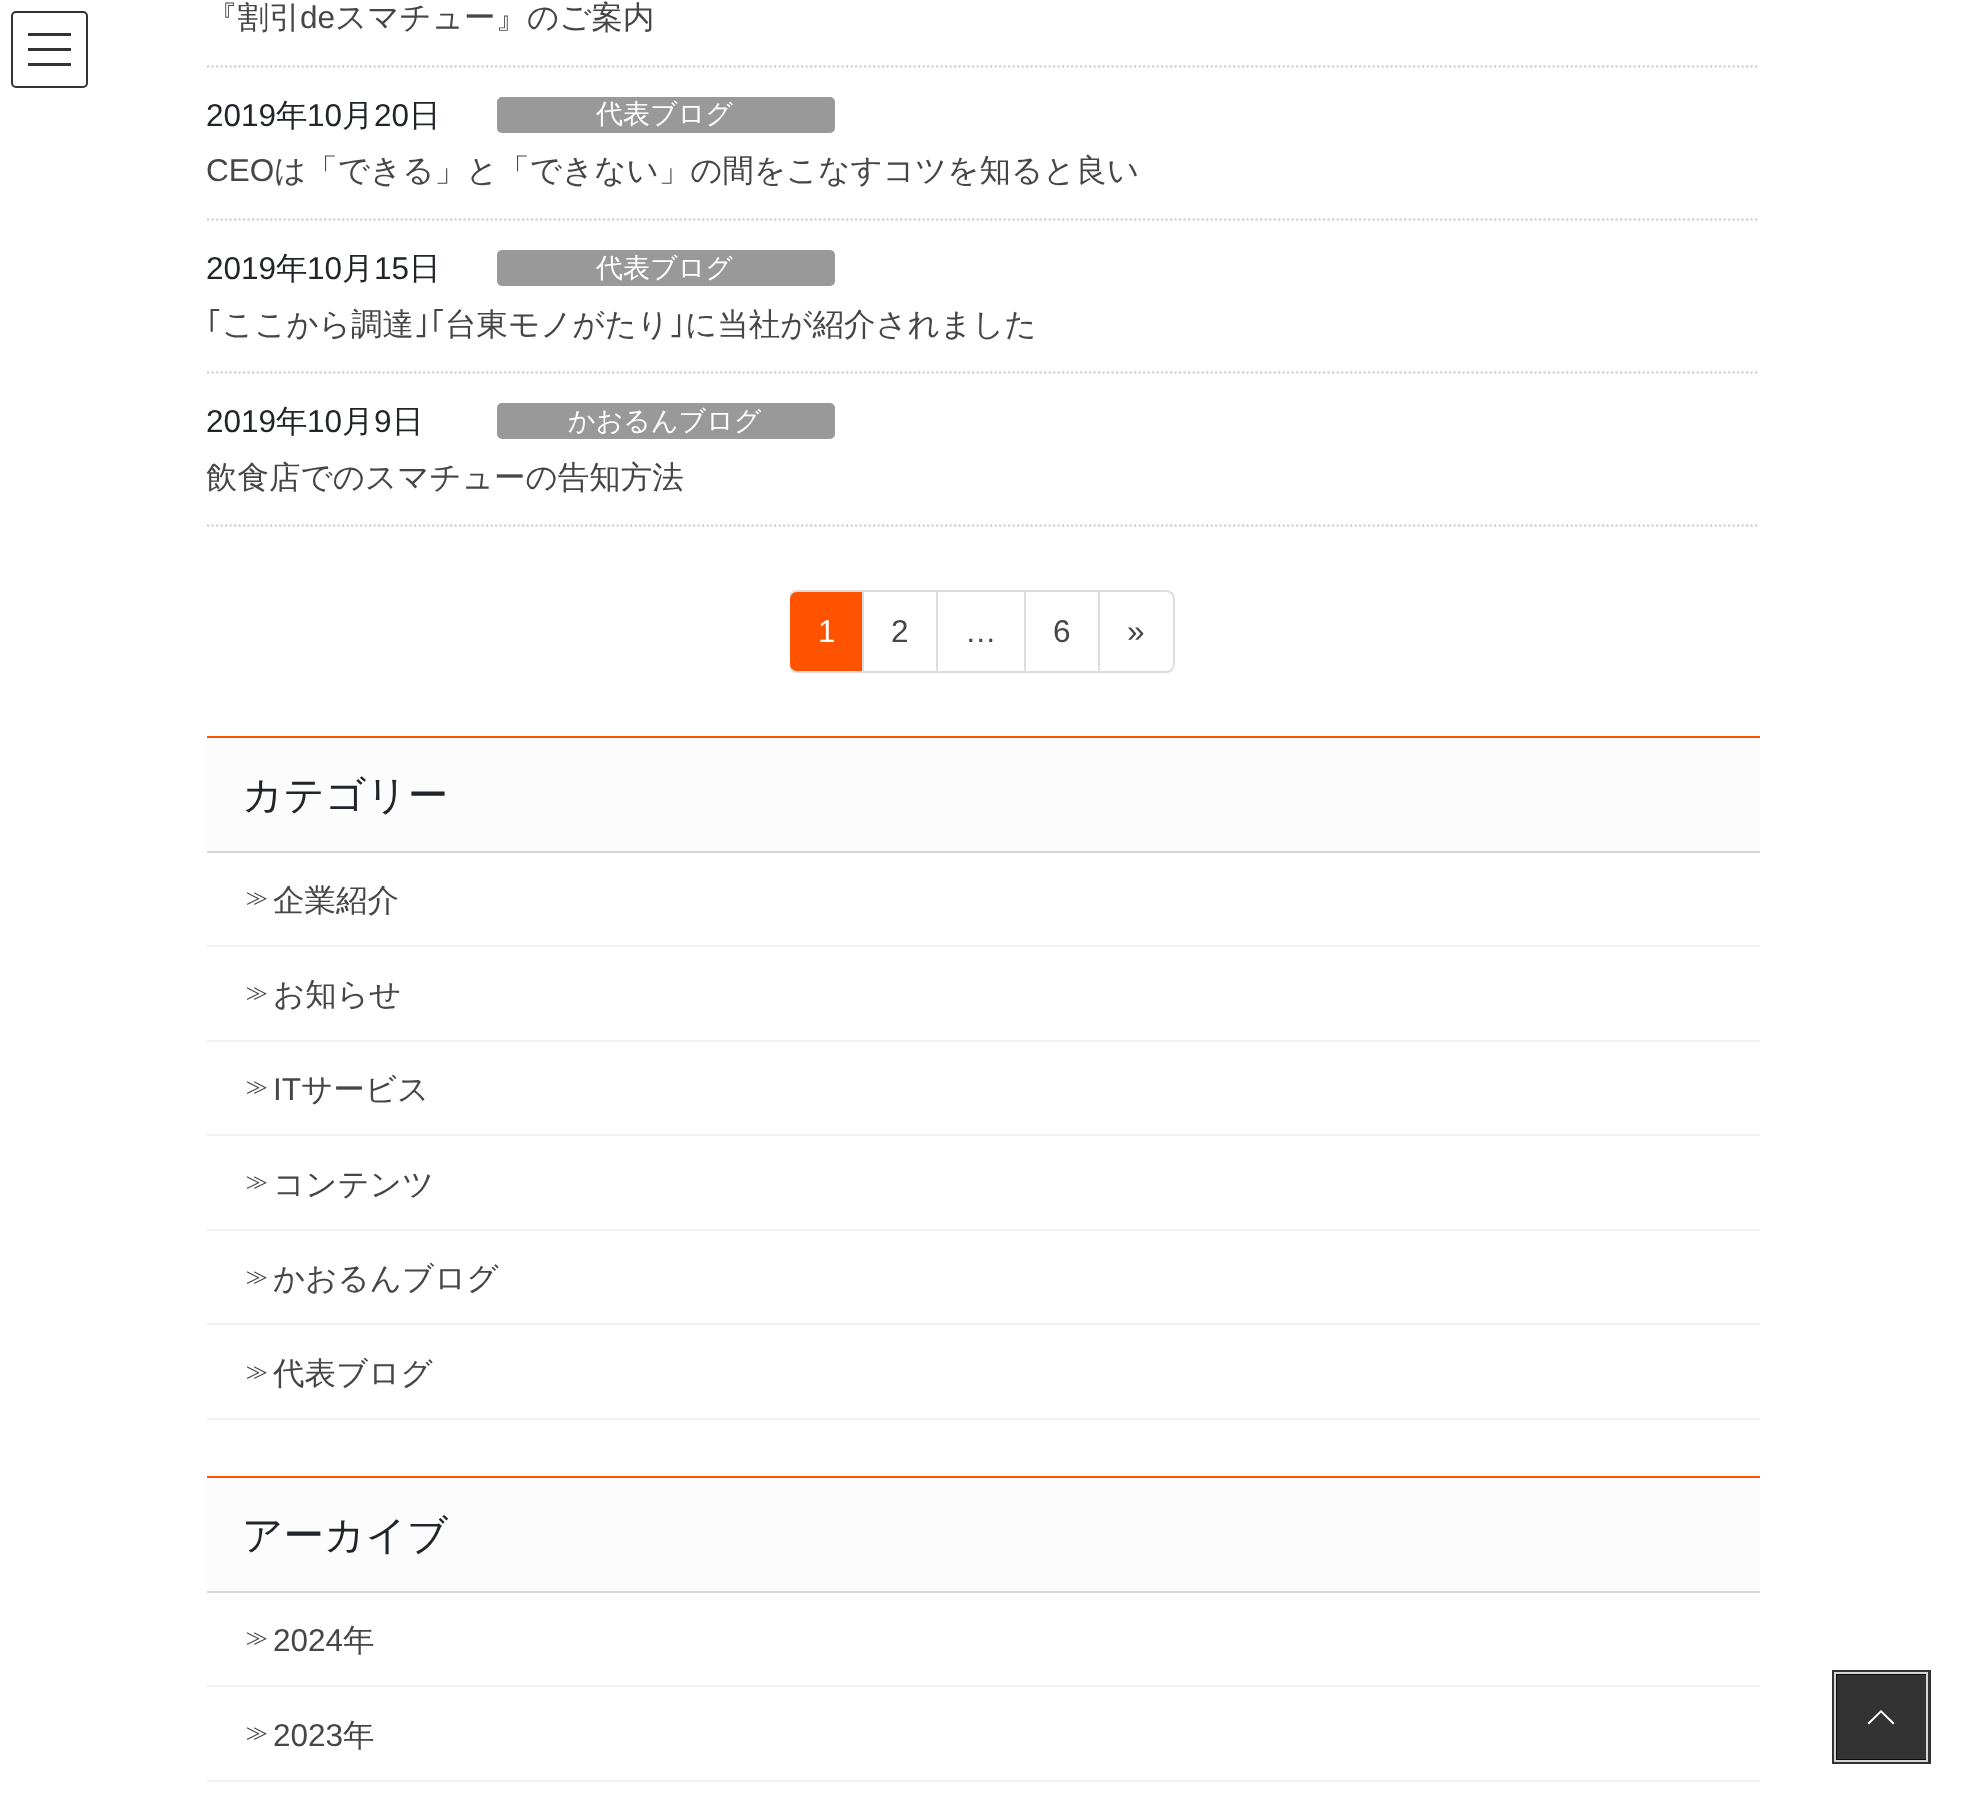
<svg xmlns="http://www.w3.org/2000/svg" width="1964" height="1812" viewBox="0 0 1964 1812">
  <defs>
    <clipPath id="clip1"><rect x="790" y="590" width="74" height="83"/></clipPath>
    <clipPath id="clip2"><rect x="864" y="590" width="74" height="83"/></clipPath>
    <clipPath id="clip3"><rect x="938" y="590" width="88" height="83"/></clipPath>
    <clipPath id="clip4"><rect x="1026" y="590" width="74" height="83"/></clipPath>
    <clipPath id="clip5"><rect x="1100" y="590" width="75" height="83"/></clipPath>
  </defs>
  <rect width="100%" height="100%" fill="#ffffff"/>
  <rect x="28" y="33" width="43" height="3" fill="#333333"/>
  <rect x="28" y="48" width="43" height="3" fill="#333333"/>
  <rect x="28" y="63" width="43" height="3" fill="#333333"/>
  <rect x="12" y="12" width="75" height="75" rx="4" fill="none" stroke="#333333" stroke-width="2"/>
  <path d="M207 66.5H1759.5" fill="none" stroke="#cccccc" stroke-width="2.2" stroke-dasharray="2.25 2.25"/>
  <text x="206" y="28" font-family="WenQuanYi Zen Hei" font-size="31.5" font-weight="500" fill="#464646">『割引</text>
  <text x="300" y="28" font-family="Liberation Sans" font-size="31.5" fill="#464646">de</text>
  <text x="335" y="28" font-family="WenQuanYi Zen Hei" font-size="31.5" font-weight="500" fill="#464646">スマチュー』のご案内</text>
  <path d="M207 219.5H1759.5" fill="none" stroke="#cccccc" stroke-width="2.2" stroke-dasharray="2.25 2.25"/>
  <text x="206" y="126" font-family="Liberation Sans" font-size="31.5" fill="#212529">2019</text>
  <text x="276" y="126" font-family="WenQuanYi Zen Hei" font-size="31.5" font-weight="500" fill="#212529">年</text>
  <text x="307" y="126" font-family="Liberation Sans" font-size="31.5" fill="#212529">10</text>
  <text x="342" y="126" font-family="WenQuanYi Zen Hei" font-size="31.5" font-weight="500" fill="#212529">月</text>
  <text x="374" y="126" font-family="Liberation Sans" font-size="31.5" fill="#212529">20</text>
  <text x="409" y="126" font-family="WenQuanYi Zen Hei" font-size="31.5" font-weight="500" fill="#212529">日</text>
  <rect x="497" y="97" width="338" height="36" rx="5" fill="#999999"/>
  <text x="596" y="123" font-family="WenQuanYi Zen Hei" font-size="27" font-weight="500" fill="#ffffff">代表ブログ</text>
  <text x="206" y="181" font-family="Liberation Sans" font-size="31.5" fill="#464646">CEO</text>
  <text x="274" y="181" font-family="WenQuanYi Zen Hei" font-size="31.5" font-weight="500" fill="#464646">は「できる」と「できない」の間をこなすコツを知ると良い</text>
  <path d="M207 372.5H1759.5" fill="none" stroke="#cccccc" stroke-width="2.2" stroke-dasharray="2.25 2.25"/>
  <text x="206" y="279" font-family="Liberation Sans" font-size="31.5" fill="#212529">2019</text>
  <text x="276" y="279" font-family="WenQuanYi Zen Hei" font-size="31.5" font-weight="500" fill="#212529">年</text>
  <text x="307" y="279" font-family="Liberation Sans" font-size="31.5" fill="#212529">10</text>
  <text x="342" y="279" font-family="WenQuanYi Zen Hei" font-size="31.5" font-weight="500" fill="#212529">月</text>
  <text x="374" y="279" font-family="Liberation Sans" font-size="31.5" fill="#212529">15</text>
  <text x="409" y="279" font-family="WenQuanYi Zen Hei" font-size="31.5" font-weight="500" fill="#212529">日</text>
  <rect x="497" y="250" width="338" height="36" rx="5" fill="#999999"/>
  <text x="596" y="277" font-family="WenQuanYi Zen Hei" font-size="27" font-weight="500" fill="#ffffff">代表ブログ</text>
  <text x="206" y="335" font-family="IPAPGothic" font-size="31.5" fill="#464646">｢</text>
  <text x="222" y="335" font-family="WenQuanYi Zen Hei" font-size="31.5" font-weight="500" fill="#464646">ここから調達</text>
  <text x="414" y="335" font-family="IPAPGothic" font-size="31.5" fill="#464646">｣｢</text>
  <text x="445" y="335" font-family="WenQuanYi Zen Hei" font-size="31.5" font-weight="500" fill="#464646">台東モノがたり</text>
  <text x="669" y="335" font-family="IPAPGothic" font-size="31.5" fill="#464646">｣</text>
  <text x="685" y="335" font-family="WenQuanYi Zen Hei" font-size="31.5" font-weight="500" fill="#464646">に当社が紹介されました</text>
  <path d="M207 525.5H1759.5" fill="none" stroke="#cccccc" stroke-width="2.2" stroke-dasharray="2.25 2.25"/>
  <text x="206" y="432" font-family="Liberation Sans" font-size="31.5" fill="#212529">2019</text>
  <text x="276" y="432" font-family="WenQuanYi Zen Hei" font-size="31.5" font-weight="500" fill="#212529">年</text>
  <text x="307" y="432" font-family="Liberation Sans" font-size="31.5" fill="#212529">10</text>
  <text x="342" y="432" font-family="WenQuanYi Zen Hei" font-size="31.5" font-weight="500" fill="#212529">月</text>
  <text x="374" y="432" font-family="Liberation Sans" font-size="31.5" fill="#212529">9</text>
  <text x="392" y="432" font-family="WenQuanYi Zen Hei" font-size="31.5" font-weight="500" fill="#212529">日</text>
  <rect x="497" y="403" width="338" height="36" rx="5" fill="#999999"/>
  <text x="568" y="430" font-family="WenQuanYi Zen Hei" font-size="27" font-weight="500" fill="#ffffff">かおるんブログ</text>
  <text x="206" y="488" font-family="WenQuanYi Zen Hei" font-size="31.5" font-weight="500" fill="#464646">飲食店でのスマチューの告知方法</text>
  <g clip-path="url(#clip1)">
    <path d="M797 591H863V672H797C792.5 672 789 668.5 789 664V599C789 594.5 792.5 591 797 591Z" fill="#ff5300" stroke="#dddddd" stroke-width="2"/>
  </g>
  <text x="818" y="642" font-family="Liberation Sans" font-size="31.5" fill="#ffffff">1</text>
  <g clip-path="url(#clip2)">
    <rect x="863" y="591" width="74" height="81" fill="none" stroke="#dddddd" stroke-width="2"/>
  </g>
  <text x="891" y="642" font-family="Liberation Sans" font-size="31.5" fill="#464646">2</text>
  <g clip-path="url(#clip3)">
    <rect x="937" y="591" width="88" height="81" fill="none" stroke="#dddddd" stroke-width="2"/>
  </g>
  <text x="965" y="642" font-family="Liberation Sans" font-size="31.5" fill="#464646">…</text>
  <g clip-path="url(#clip4)">
    <rect x="1025" y="591" width="74" height="81" fill="none" stroke="#dddddd" stroke-width="2"/>
  </g>
  <text x="1053" y="642" font-family="Liberation Sans" font-size="31.5" fill="#464646">6</text>
  <g clip-path="url(#clip5)">
    <path d="M1099 591H1166C1170.5 591 1174 594.5 1174 599V664C1174 668.5 1170.5 672 1166 672H1099Z" fill="none" stroke="#dddddd" stroke-width="2"/>
  </g>
  <text x="1127" y="642" font-family="Liberation Sans" font-size="31.5" fill="#464646">»</text>
  <rect x="207" y="738" width="1553" height="113" fill="#fcfcfc"/>
  <rect x="207" y="736" width="1553" height="2" fill="#ff5300"/>
  <rect x="207" y="851" width="1553" height="2" fill="#d6d6d6"/>
  <text x="242" y="809" font-family="WenQuanYi Zen Hei" font-size="40.5" font-weight="500" fill="#212529">カテゴリー</text>
  <rect x="207" y="945" width="1553" height="2" fill="#f2f2f2"/>
  <text x="246" y="905" font-family="WenQuanYi Zen Hei" font-size="22" font-weight="500" fill="#464646">≫</text>
  <text x="273" y="911" font-family="WenQuanYi Zen Hei" font-size="31.5" font-weight="500" fill="#464646">企業紹介</text>
  <rect x="207" y="1040" width="1553" height="2" fill="#f2f2f2"/>
  <text x="246" y="1000" font-family="WenQuanYi Zen Hei" font-size="22" font-weight="500" fill="#464646">≫</text>
  <text x="273" y="1005" font-family="WenQuanYi Zen Hei" font-size="31.5" font-weight="500" fill="#464646">お知らせ</text>
  <rect x="207" y="1134" width="1553" height="2" fill="#f2f2f2"/>
  <text x="246" y="1094" font-family="WenQuanYi Zen Hei" font-size="22" font-weight="500" fill="#464646">≫</text>
  <text x="273" y="1100" font-family="Liberation Sans" font-size="31.5" fill="#464646">IT</text>
  <text x="301" y="1100" font-family="WenQuanYi Zen Hei" font-size="31.5" font-weight="500" fill="#464646">サービス</text>
  <rect x="207" y="1229" width="1553" height="2" fill="#f2f2f2"/>
  <text x="246" y="1189" font-family="WenQuanYi Zen Hei" font-size="22" font-weight="500" fill="#464646">≫</text>
  <text x="273" y="1195" font-family="WenQuanYi Zen Hei" font-size="31.5" font-weight="500" fill="#464646">コンテンツ</text>
  <rect x="207" y="1323" width="1553" height="2" fill="#f2f2f2"/>
  <text x="246" y="1284" font-family="WenQuanYi Zen Hei" font-size="22" font-weight="500" fill="#464646">≫</text>
  <text x="273" y="1289" font-family="WenQuanYi Zen Hei" font-size="31.5" font-weight="500" fill="#464646">かおるんブログ</text>
  <rect x="207" y="1418" width="1553" height="2" fill="#f2f2f2"/>
  <text x="246" y="1379" font-family="WenQuanYi Zen Hei" font-size="22" font-weight="500" fill="#464646">≫</text>
  <text x="273" y="1384" font-family="WenQuanYi Zen Hei" font-size="31.5" font-weight="500" fill="#464646">代表ブログ</text>
  <rect x="207" y="1478" width="1553" height="113" fill="#fcfcfc"/>
  <rect x="207" y="1476" width="1553" height="2" fill="#ff5300"/>
  <rect x="207" y="1591" width="1553" height="2" fill="#d6d6d6"/>
  <text x="242" y="1549" font-family="WenQuanYi Zen Hei" font-size="40.5" font-weight="500" fill="#212529">アーカイブ</text>
  <rect x="207" y="1685" width="1553" height="2" fill="#f2f2f2"/>
  <text x="246" y="1645" font-family="WenQuanYi Zen Hei" font-size="22" font-weight="500" fill="#464646">≫</text>
  <text x="273" y="1651" font-family="Liberation Sans" font-size="31.5" fill="#464646">2024</text>
  <text x="343" y="1651" font-family="WenQuanYi Zen Hei" font-size="31.5" font-weight="500" fill="#464646">年</text>
  <rect x="207" y="1780" width="1553" height="2" fill="#f2f2f2"/>
  <text x="246" y="1740" font-family="WenQuanYi Zen Hei" font-size="22" font-weight="500" fill="#464646">≫</text>
  <text x="273" y="1746" font-family="Liberation Sans" font-size="31.5" fill="#464646">2023</text>
  <text x="343" y="1746" font-family="WenQuanYi Zen Hei" font-size="31.5" font-weight="500" fill="#464646">年</text>
  <rect x="1834.5" y="1672.5" width="94" height="89" fill="none" stroke="#333333" stroke-width="5"/>
  <rect x="1835" y="1673" width="92" height="88" fill="none" stroke="#d6d6d6" stroke-width="2"/>
  <rect x="1836" y="1674" width="90" height="86" fill="#000000" fill-opacity="0.8"/>
  <path d="M1894.5 1723L1893 1724.5L1881 1712.5L1869 1724.5L1867.5 1723L1881 1710Z" fill="#ffffff"/>
</svg>
